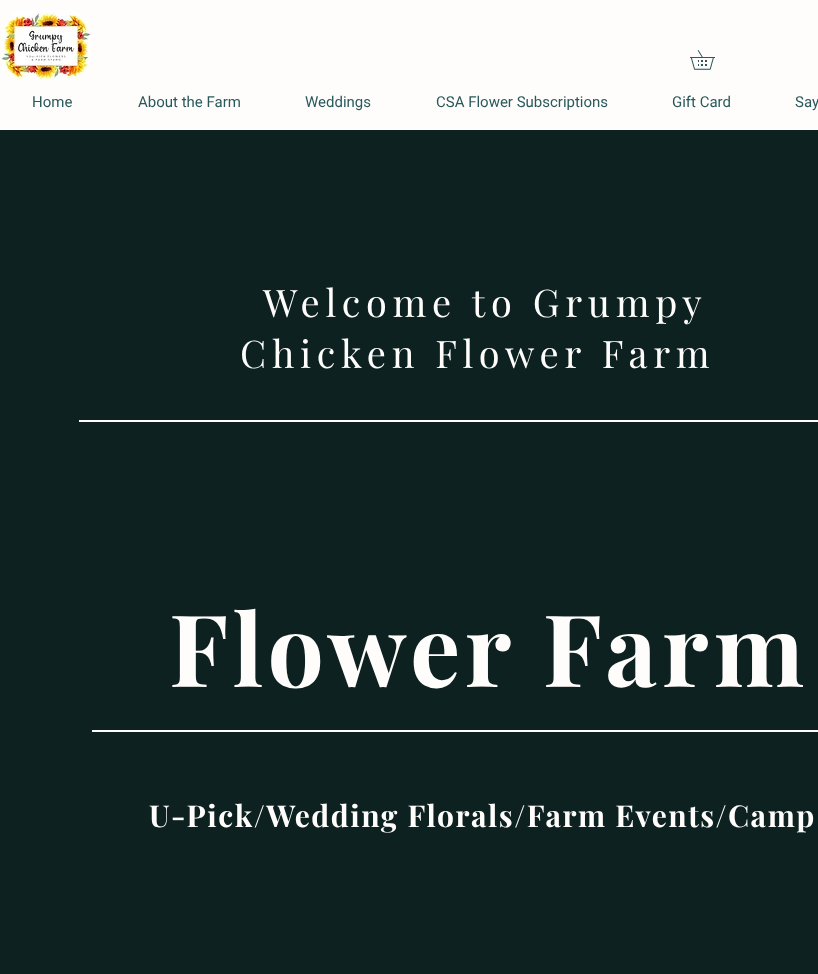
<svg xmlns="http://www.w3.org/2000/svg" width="818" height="974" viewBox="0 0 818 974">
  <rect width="100%" height="100%" fill="#fffdfb"/>
  <image x="690" y="50" width="25" height="20" href="img1.png"/>
  <image x="1" y="10" width="90" height="70" href="img2.png"/>
  <text x="32" y="107" font-family="Roboto" font-size="15" fill="#285a5b">Home</text>
  <text x="138" y="107" font-family="Roboto" font-size="15" fill="#285a5b">About the Farm</text>
  <text x="305" y="107" font-family="Roboto" font-size="15" fill="#285a5b">Weddings</text>
  <text x="436" y="107" font-family="Roboto" font-size="15" fill="#285a5b">CSA Flower Subscriptions</text>
  <text x="672" y="107" font-family="Roboto" font-size="15" fill="#285a5b">Gift Card</text>
  <text x="795" y="107" font-family="Roboto" font-size="15" fill="#285a5b">Say</text>
  <rect x="0" y="130" width="818" height="844" fill="#0d2120"/>
  <text x="263" y="317" font-family="Playfair Display" font-size="38" letter-spacing="5.75" fill="#fffdfb">Welcome to Grumpy</text>
  <text x="240" y="368" font-family="Playfair Display" font-size="38" letter-spacing="5.75" fill="#fffdfb">Chicken Flower Farm</text>
  <rect x="79" y="420" width="739" height="2" fill="#fffdfb"/>
  <text x="169" y="687" font-family="Playfair Display" font-size="100" font-weight="bold" letter-spacing="5" fill="#fffdfb">Flower Farm</text>
  <rect x="92" y="730" width="726" height="2" fill="#fffdfb"/>
  <text x="149" y="827" font-family="Playfair Display" font-size="30" font-weight="bold" letter-spacing="1.5" fill="#fffdfb">U-Pick/Wedding Florals/Farm Events/Camp</text>
</svg>
